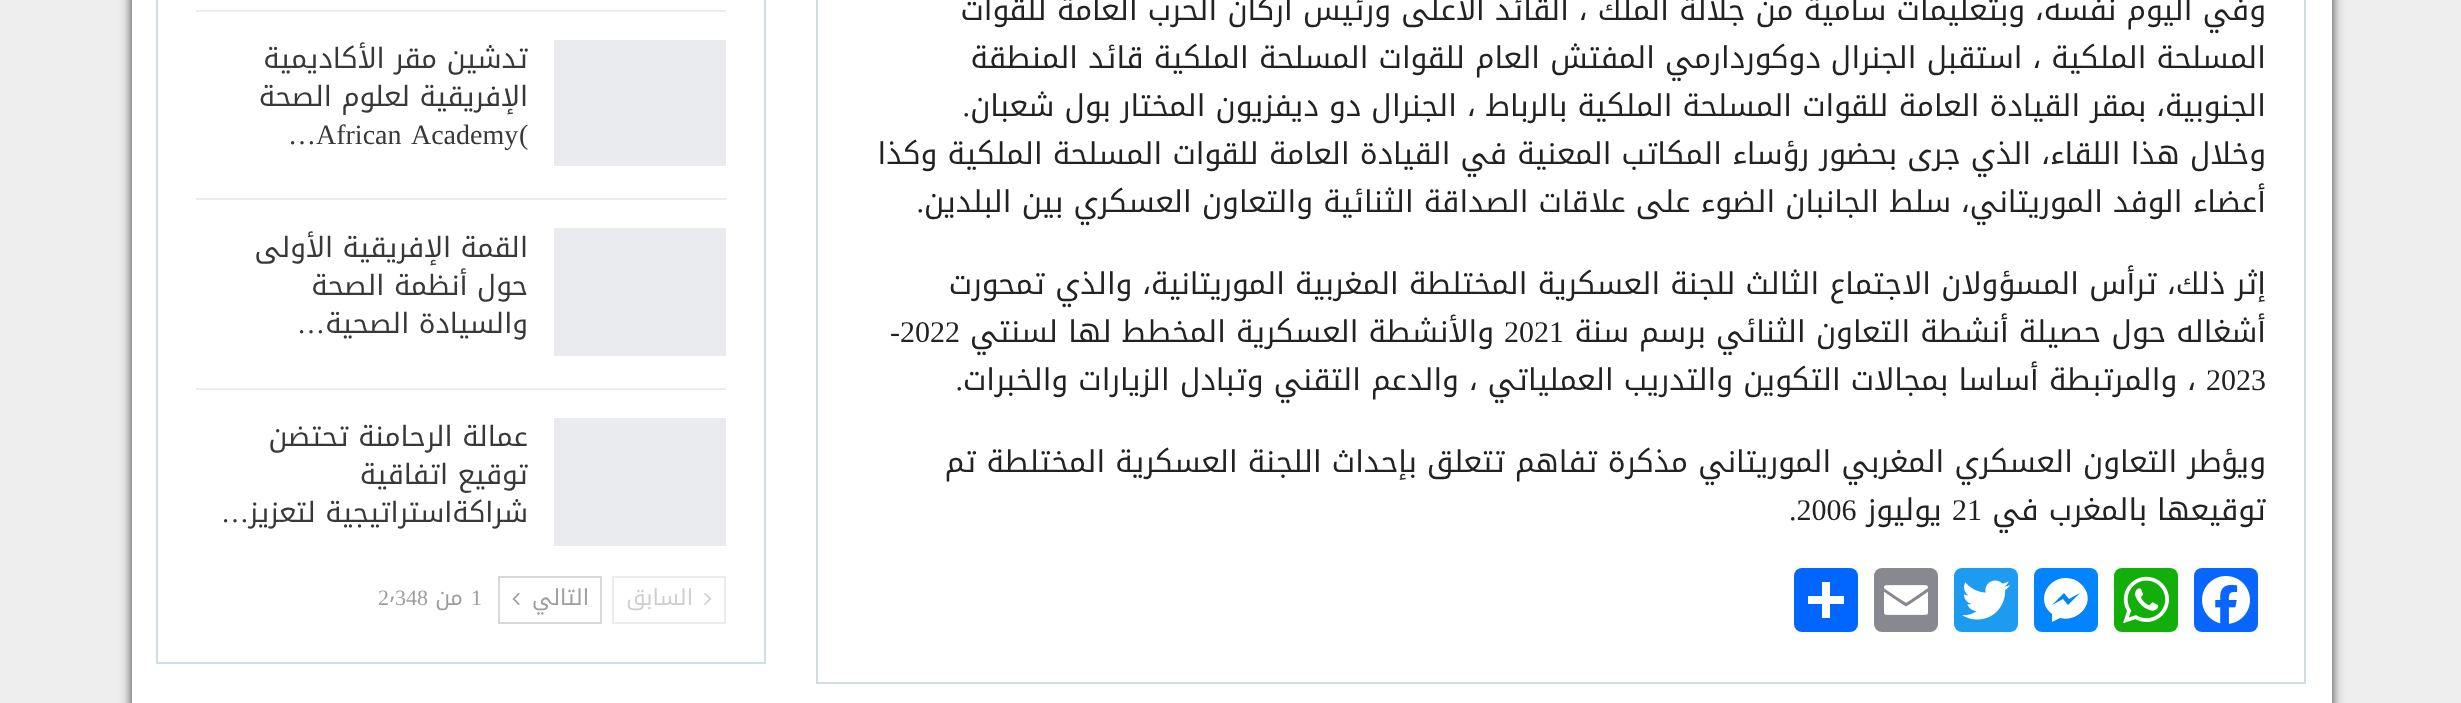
<svg xmlns="http://www.w3.org/2000/svg" width="2461" height="703" viewBox="0 0 2461 703">
  <defs>
    <filter id="blur1" x="-50%" y="-200%" width="200%" height="500%"><feGaussianBlur stdDeviation="6"/></filter>
  </defs>
  <rect width="100%" height="100%" fill="#eeeeee"/>
  <rect x="132" y="-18" width="2200" height="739" fill="#333333" filter="url(#blur1)"/>
  <rect x="132" y="0" width="2200" height="703" fill="#ffffff"/>
  <rect x="817" y="-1" width="1488" height="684" fill="none" stroke="#d2dce3" stroke-width="2"/>
  <text x="2266" y="20" font-family="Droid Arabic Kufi" font-size="30" direction="rtl" fill="#222222">وفي اليوم نفسه، وبتعليمات سامية من جلالة الملك ، القائد الأعلى ورئيس أركان الحرب العامة للقوات</text>
  <text x="2266" y="68" font-family="Droid Arabic Kufi" font-size="30" direction="rtl" fill="#222222">المسلحة الملكية ، استقبل الجنرال دوكوردارمي المفتش العام للقوات المسلحة الملكية قائد المنطقة</text>
  <text x="2266" y="116" font-family="Droid Arabic Kufi" font-size="30" direction="rtl" fill="#222222">الجنوبية، بمقر القيادة العامة للقوات المسلحة الملكية بالرباط ، الجنرال دو ديفزيون المختار بول شعبان</text>
  <text x="970" y="116" font-family="Liberation Serif" font-size="30" direction="rtl" fill="#222222">.</text>
  <text x="2266" y="164" font-family="Droid Arabic Kufi" font-size="30" direction="rtl" fill="#222222">وخلال هذا اللقاء، الذي جرى بحضور رؤساء المكاتب المعنية في القيادة العامة للقوات المسلحة الملكية وكذا</text>
  <text x="2266" y="212" font-family="Droid Arabic Kufi" font-size="30" direction="rtl" fill="#222222">أعضاء الوفد الموريتاني، سلط الجانبان الضوء على علاقات الصداقة الثنائية والتعاون العسكري بين البلدين</text>
  <text x="924" y="212" font-family="Liberation Serif" font-size="30" direction="rtl" fill="#222222">.</text>
  <text x="2266" y="294" font-family="Droid Arabic Kufi" font-size="30" direction="rtl" fill="#222222">إثر ذلك، ترأس المسؤولان الاجتماع الثالث للجنة العسكرية المختلطة المغربية الموريتانية، والذي تمحورت</text>
  <text x="2266" y="342" font-family="Droid Arabic Kufi" font-size="30" direction="rtl" fill="#222222">أشغاله حول حصيلة أنشطة التعاون الثنائي برسم سنة</text>
  <text x="1504" y="342" font-family="Liberation Serif" font-size="30" fill="#222222">2021</text>
  <text x="1494" y="342" font-family="Droid Arabic Kufi" font-size="30" direction="rtl" fill="#222222">والأنشطة العسكرية المخطط لها لسنتي</text>
  <text x="890" y="342" font-family="Liberation Serif" font-size="30" fill="#222222">-2022</text>
  <text x="2206" y="390" font-family="Liberation Serif" font-size="30" fill="#222222">2023</text>
  <text x="2196" y="390" font-family="Droid Arabic Kufi" font-size="30" direction="rtl" fill="#222222">، والمرتبطة أساسا بمجالات التكوين والتدريب العملياتي ، والدعم التقني وتبادل الزيارات والخبرات</text>
  <text x="963" y="390" font-family="Liberation Serif" font-size="30" direction="rtl" fill="#222222">.</text>
  <text x="2266" y="472" font-family="Droid Arabic Kufi" font-size="30" direction="rtl" fill="#222222">ويؤطر التعاون العسكري المغربي الموريتاني مذكرة تفاهم تتعلق بإحداث اللجنة العسكرية المختلطة تم</text>
  <text x="2266" y="520" font-family="Droid Arabic Kufi" font-size="30" direction="rtl" fill="#222222">توقيعها بالمغرب في</text>
  <text x="1952" y="520" font-family="Liberation Serif" font-size="30" fill="#222222">21</text>
  <text x="1942" y="520" font-family="Droid Arabic Kufi" font-size="30" direction="rtl" fill="#222222">يوليوز</text>
  <text x="1789" y="520" font-family="Liberation Serif" font-size="30" fill="#222222">.2006</text>
  <rect x="2194" y="568" width="64" height="64" rx="8" fill="#0866ff"/>
  <image x="2202" y="576" width="48" height="48" href="img1.png"/>
  <rect x="2114" y="568" width="64" height="64" rx="8" fill="#12af0a"/>
  <image x="2123" y="576" width="46" height="48" href="img2.png"/>
  <rect x="2034" y="568" width="64" height="64" rx="8" fill="#0084ff"/>
  <path d="M2066 578C2046 578 2036 602 2052 614V622L2060 618C2080 623 2098 600 2081 584C2077 580 2072 578 2066 578M2068 605L2063 599L2052 605L2064 593L2069 599L2080 593Z" fill="#ffffff"/>
  <rect x="1954" y="568" width="64" height="64" rx="8" fill="#1d9bf0"/>
  <image x="1962" y="580" width="48" height="40" href="img3.png"/>
  <rect x="1874" y="568" width="64" height="64" rx="8" fill="#888990"/>
  <image x="1884" y="585" width="44" height="30" href="img4.png"/>
  <rect x="1794" y="568" width="64" height="64" rx="8" fill="#0166ff"/>
  <rect x="1822" y="582" width="8" height="36" fill="#ffffff"/>
  <rect x="1808" y="596" width="36" height="8" fill="#ffffff"/>
  <rect x="157" y="-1" width="608" height="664" fill="none" stroke="#d2dce3" stroke-width="2"/>
  <rect x="196" y="10" width="530" height="2" fill="#e8edf1"/>
  <rect x="196" y="198" width="530" height="2" fill="#e8edf1"/>
  <rect x="554" y="40" width="172" height="126" fill="#e9ebee"/>
  <text x="528" y="68" font-family="Droid Arabic Kufi" font-size="28" direction="rtl" fill="#383838">تدشين مقر الأكاديمية</text>
  <text x="528" y="106" font-family="Droid Arabic Kufi" font-size="28" direction="rtl" fill="#383838">الإفريقية لعلوم الصحة</text>
  <text x="519" y="144" font-family="Liberation Serif" font-size="28" fill="#383838">(</text>
  <text x="316" y="144" word-spacing="4" font-family="Liberation Serif" font-size="28" fill="#383838">African Academy</text>
  <text x="288" y="144" font-family="Liberation Serif" font-size="28" fill="#383838">…</text>
  <rect x="196" y="388" width="530" height="2" fill="#e8edf1"/>
  <rect x="554" y="228" width="172" height="128" fill="#e9ebee"/>
  <text x="528" y="257" font-family="Droid Arabic Kufi" font-size="28" direction="rtl" fill="#383838">القمة الإفريقية الأولى</text>
  <text x="528" y="295" font-family="Droid Arabic Kufi" font-size="28" direction="rtl" fill="#383838">حول أنظمة الصحة</text>
  <text x="528" y="333" font-family="Droid Arabic Kufi" font-size="28" direction="rtl" fill="#383838">والسيادة الصحية</text>
  <text x="325" y="333" font-family="Liberation Serif" font-size="28" direction="rtl" fill="#383838">…</text>
  <rect x="554" y="418" width="172" height="128" fill="#e9ebee"/>
  <text x="528" y="446" font-family="Droid Arabic Kufi" font-size="28" direction="rtl" fill="#383838">عمالة الرحامنة تحتضن</text>
  <text x="528" y="484" font-family="Droid Arabic Kufi" font-size="28" direction="rtl" fill="#383838">توقيع اتفاقية</text>
  <text x="528" y="522" font-family="Droid Arabic Kufi" font-size="28" direction="rtl" fill="#383838">شراكةاستراتيجية لتعزيز</text>
  <text x="249" y="522" font-family="Liberation Serif" font-size="28" direction="rtl" fill="#383838">…</text>
  <rect x="613" y="577" width="112" height="46" fill="none" stroke="#ececec" stroke-width="2"/>
  <image x="704" y="593" width="8" height="12" href="img5.png"/>
  <text x="693" y="605" font-family="Droid Arabic Kufi" font-size="22" direction="rtl" fill="#cfcfcf">السابق</text>
  <rect x="499" y="577" width="102" height="46" fill="none" stroke="#d8d8d8" stroke-width="2"/>
  <text x="589" y="605" font-family="Droid Arabic Kufi" font-size="22" direction="rtl" fill="#9e9e9e">التالي</text>
  <image x="512" y="592" width="8" height="13" href="img6.png"/>
  <text x="471" y="605" font-family="Liberation Serif" font-size="22" fill="#9e9e9e">1</text>
  <text x="463" y="605" font-family="Droid Arabic Kufi" font-size="22" direction="rtl" fill="#9e9e9e">من</text>
  <text x="395" y="605" font-family="Liberation Serif" font-size="22" fill="#9e9e9e">348</text>
  <text x="389" y="605" font-family="Droid Arabic Kufi" font-size="22" fill="#9e9e9e">٬</text>
  <text x="378" y="605" font-family="Liberation Serif" font-size="22" fill="#9e9e9e">2</text>
</svg>
